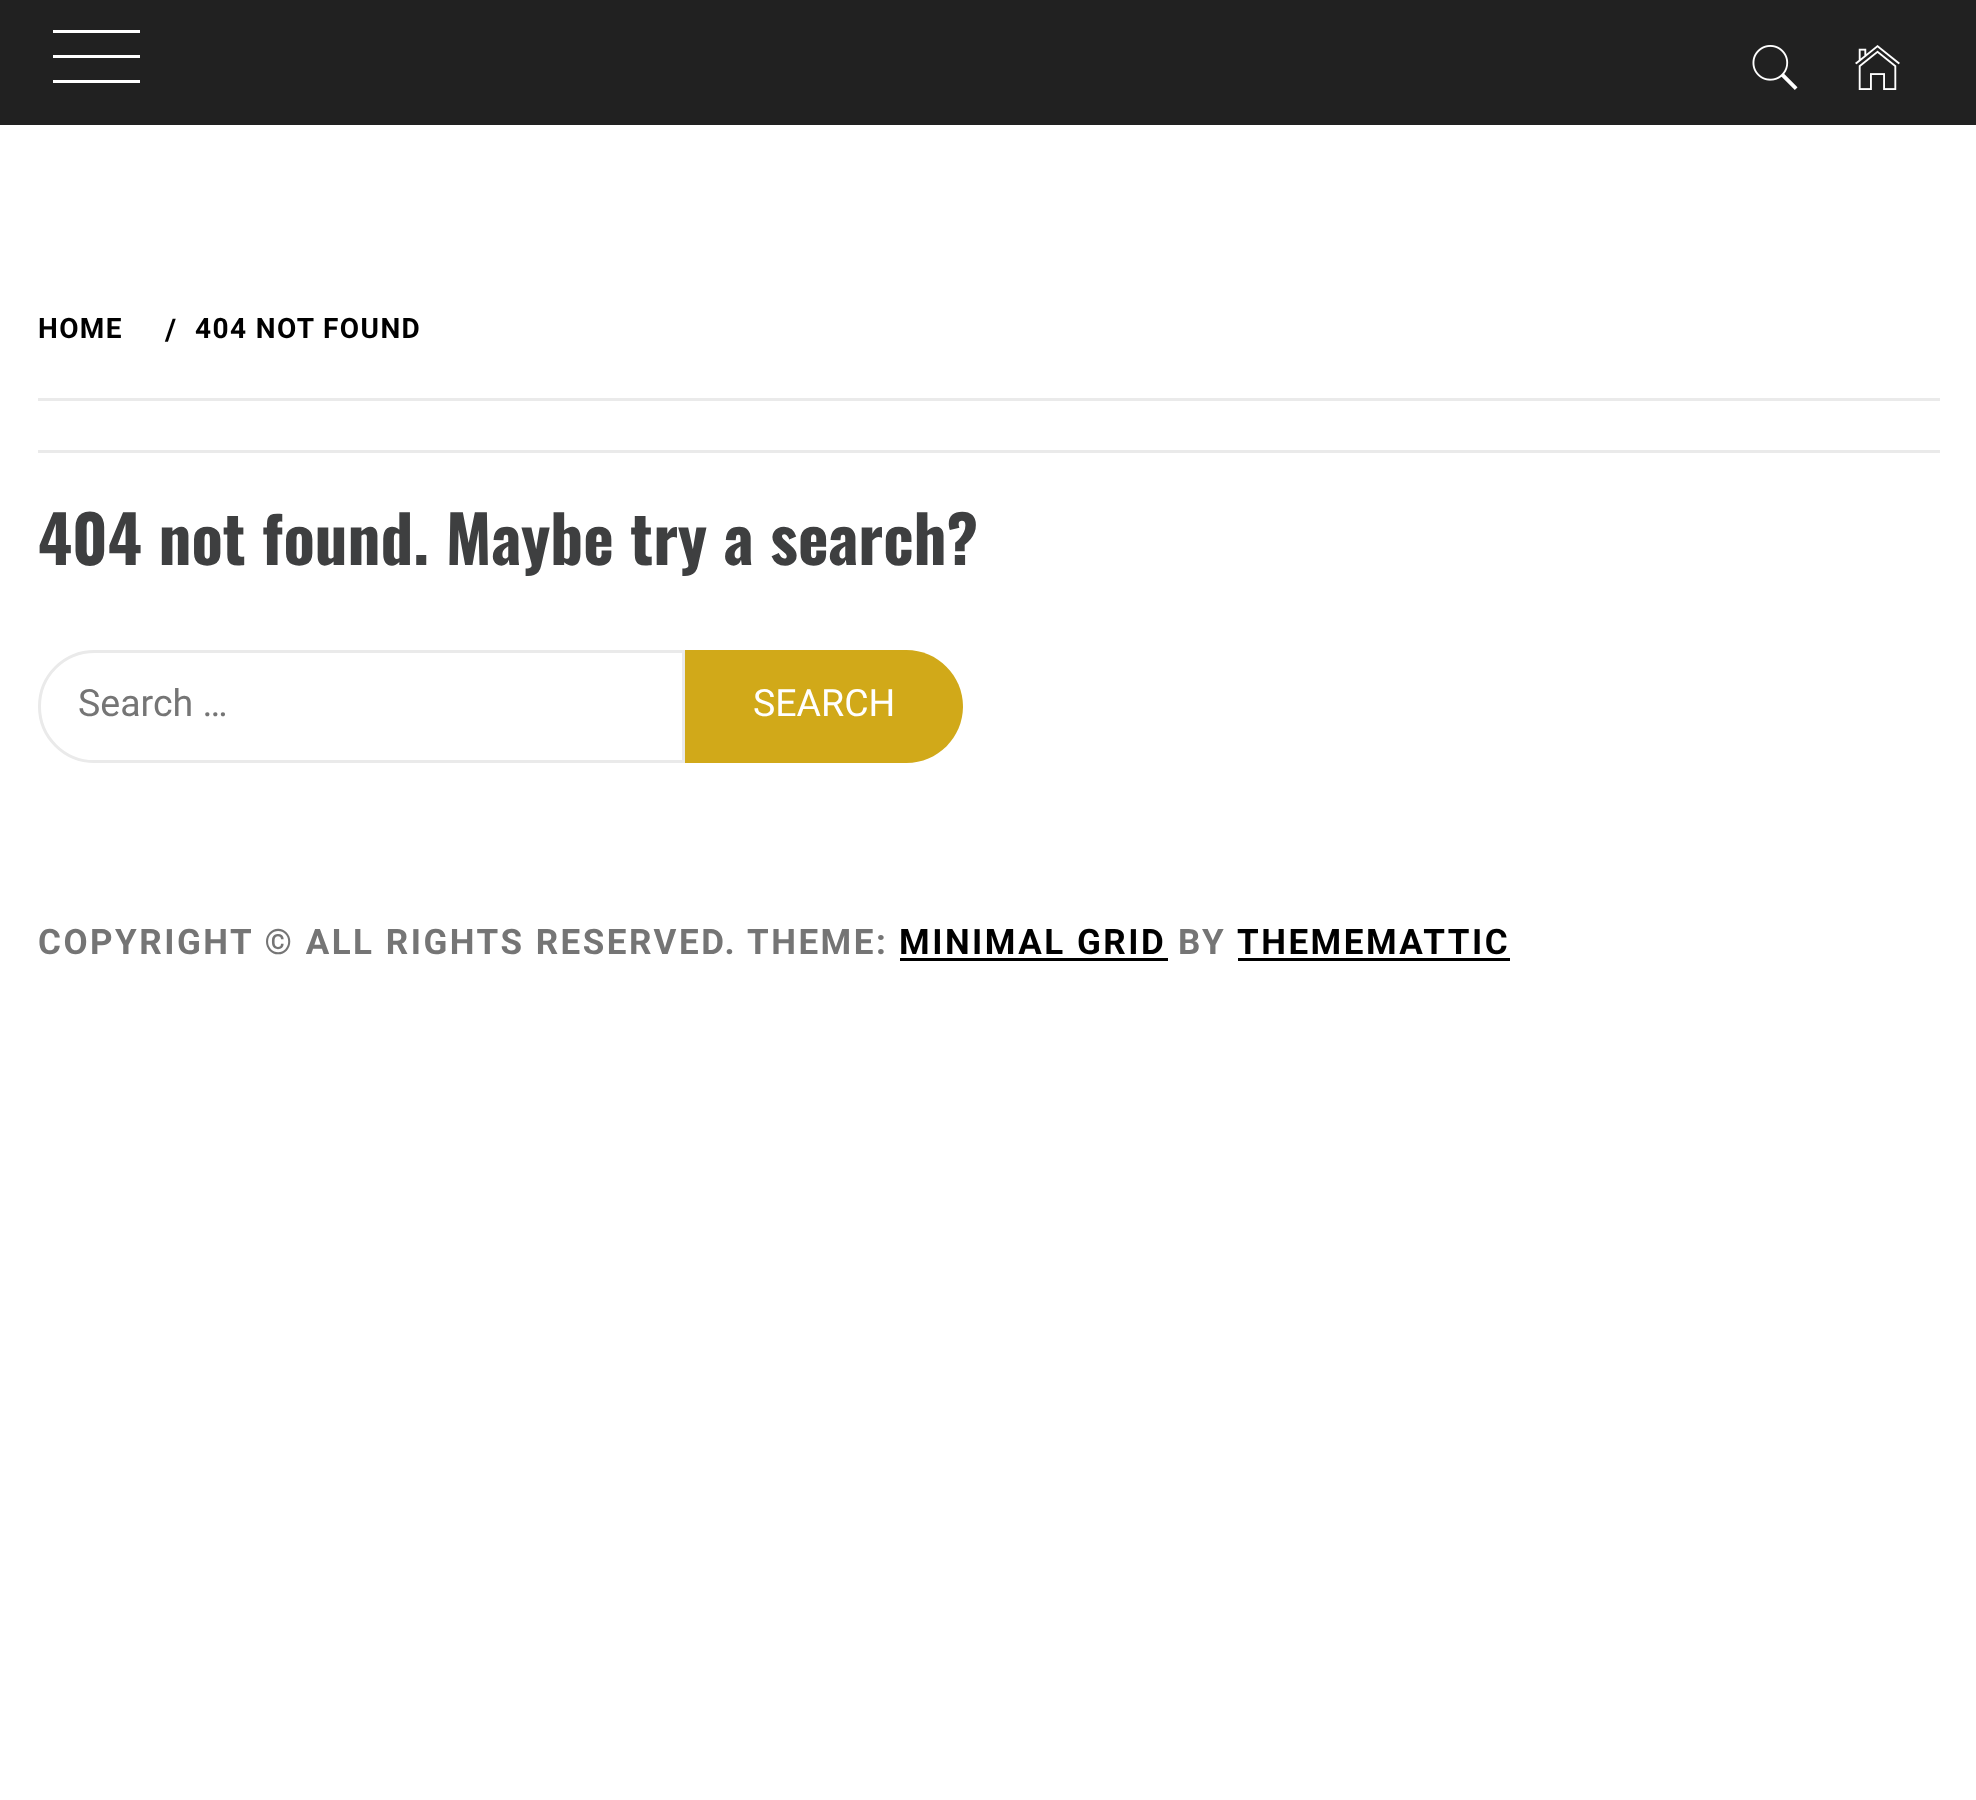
<svg xmlns="http://www.w3.org/2000/svg" width="1976" height="1800" viewBox="0 0 1976 1800">
  <rect width="100%" height="100%" fill="#ffffff"/>
  <rect x="0" y="0" width="1976" height="125" fill="#212121"/>
  <rect x="53" y="30" width="87" height="3" fill="#ffffff"/>
  <rect x="53" y="55" width="87" height="3" fill="#ffffff"/>
  <rect x="53" y="80" width="87" height="3" fill="#ffffff"/>
  <image x="1752" y="45" width="46" height="45" href="img1.png"/>
  <image x="1855" y="45" width="45" height="45" href="img2.png"/>
  <rect x="38" y="450" width="1902" height="3" fill="#eaeaea"/>
  <rect x="38" y="398" width="1902" height="3" fill="#eaeaea"/>
  <text x="38" y="338" font-family="Roboto" font-size="28" font-weight="bold" letter-spacing="1.4" fill="#000000">HOME</text>
  <text x="165" y="340" font-family="Roboto" font-size="30" font-weight="bold" letter-spacing="1.4" fill="#000000">/</text>
  <text x="195" y="338" font-family="Roboto" font-size="28" font-weight="bold" letter-spacing="1.4" fill="#000000">404 NOT FOUND</text>
  <text x="38" y="565" font-family="Oswald" font-size="65" font-weight="bold" fill="#3e3f40">404 not found. Maybe try a search?</text>
  <path d="M94.5 651.5H683.5V761.5H94.5C64 761.5 39.5 737 39.5 706.5C39.5 676 64 651.5 94.5 651.5Z" fill="none" stroke="#eaeaea" stroke-width="3"/>
  <text x="78" y="716" font-family="Roboto" font-size="37.5" fill="#757575">Search …</text>
  <path d="M685 650H906.5C937.5 650 963 675.5 963 706.5C963 737.5 937.5 763 906.5 763H685Z" fill="#d1a919"/>
  <text x="753" y="716" font-family="Roboto" font-size="37.5" fill="#ffffff">SEARCH</text>
  <text x="38" y="954" font-family="Roboto" font-size="35" font-weight="bold" letter-spacing="2.5" fill="#757575">COPYRIGHT © ALL RIGHTS RESERVED.</text>
  <text x="747" y="954" font-family="Roboto" font-size="35" font-weight="bold" letter-spacing="2.5" fill="#757575">THEME:</text>
  <text x="899" y="954" font-family="Roboto" font-size="35" font-weight="bold" letter-spacing="2.5" fill="#000000">MINIMAL GRID</text>
  <rect x="900" y="958" width="268" height="3" fill="#000000"/>
  <text x="1178" y="954" font-family="Roboto" font-size="35" font-weight="bold" letter-spacing="2.5" fill="#757575">BY</text>
  <text x="1237" y="954" font-family="Roboto" font-size="35" font-weight="bold" letter-spacing="2.5" fill="#000000">THEMEMATTIC</text>
  <rect x="1238" y="958" width="272" height="3" fill="#000000"/>
</svg>
